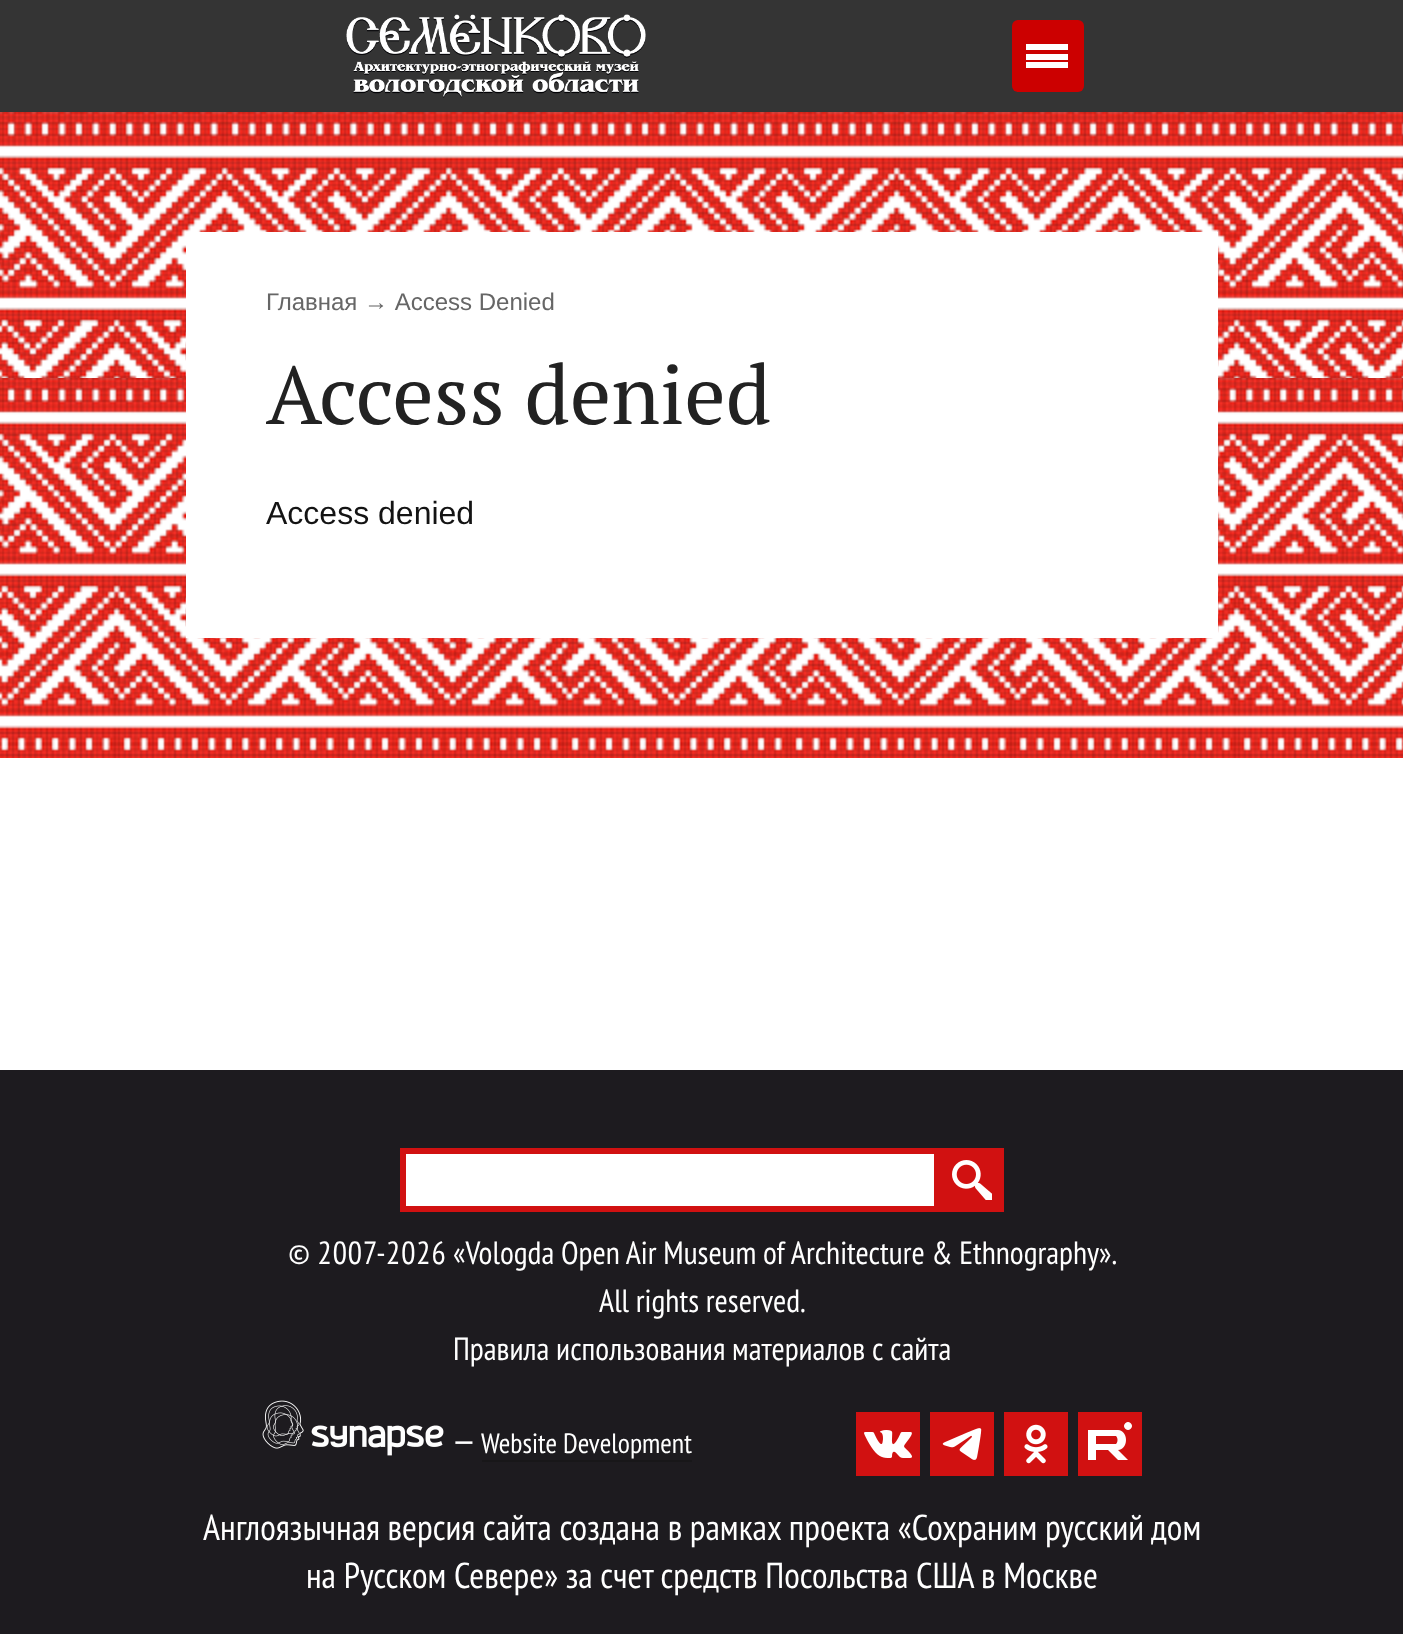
<svg xmlns="http://www.w3.org/2000/svg" width="1403" height="1634" viewBox="0 0 1403 1634">
  <rect width="100%" height="100%" fill="#ffffff"/>
  <rect x="0" y="0" width="1403" height="112" fill="#343434"/>
  <image x="346" y="14" width="300" height="84" href="img1.png"/>
  <rect x="1012" y="20" width="72" height="72" rx="6" fill="#cc0000"/>
  <rect x="1026" y="44" width="42" height="6" fill="#ffffff"/>
  <rect x="1026" y="54" width="42" height="6" fill="#ffffff"/>
  <rect x="1026" y="62" width="42" height="6" fill="#ffffff"/>
  <image x="0" y="112" width="1403" height="266" href="img2.png"/>
  <image x="0" y="378" width="1403" height="380" href="img3.png"/>
  <rect x="186" y="232" width="1032" height="406" fill="#ffffff"/>
  <text x="266" y="310" font-family="Liberation Sans" font-size="24" fill="#666666">Главная → Access Denied</text>
  <text x="266" y="424" font-family="PT Serif" font-size="82" fill="#222222">Access denied</text>
  <text x="266" y="524" font-family="Liberation Sans" font-size="32" fill="#131313">Access denied</text>
  <rect x="0" y="1070" width="1403" height="564" fill="#1d1b1f"/>
  <rect x="403" y="1151" width="534" height="58" fill="#ffffff" stroke="#d11111" stroke-width="6"/>
  <rect x="940" y="1148" width="64" height="64" fill="#d11111"/>
  <image x="952" y="1160" width="40" height="40" href="img4.png"/>
  <text x="288" y="1264" font-family="PT Sans Narrow" font-size="32" fill="#ffffff">© 2007-2026 «Vologda Open Air Museum of Architecture &amp; Ethnography».</text>
  <text x="599" y="1312" font-family="PT Sans Narrow" font-size="32" fill="#ffffff">All rights reserved.</text>
  <text x="453" y="1360" font-family="PT Sans Narrow" font-size="32" fill="#ffffff">Правила использования материалов с сайта</text>
  <image x="262" y="1400" width="182" height="56" href="img5.png"/>
  <text x="452" y="1453" font-family="PT Sans Narrow" font-size="36" fill="#ffffff">—</text>
  <text x="481" y="1453" font-family="PT Sans Narrow" font-size="28" fill="#ffffff">Website Development</text>
  <rect x="482" y="1460" width="210" height="2" fill="#181719"/>
  <rect x="856" y="1412" width="64" height="64" fill="#d11111"/>
  <image x="864" y="1430" width="48" height="28" href="img6.png"/>
  <rect x="930" y="1412" width="64" height="64" fill="#d11111"/>
  <image x="942" y="1428" width="40" height="32" href="img7.png"/>
  <rect x="1004" y="1412" width="64" height="64" fill="#d11111"/>
  <image x="1024" y="1424" width="24" height="40" href="img8.png"/>
  <rect x="1078" y="1412" width="64" height="64" fill="#d11111"/>
  <image x="1088" y="1422" width="44" height="38" href="img9.png"/>
  <text x="203" y="1540" font-family="PT Sans Narrow" font-size="36" fill="#ffffff">Англоязычная версия сайта создана в рамках проекта «Сохраним русский дом</text>
  <text x="306" y="1588" font-family="PT Sans Narrow" font-size="36" fill="#ffffff">на Русском Севере» за счет средств Посольства США в Москве</text>
</svg>
